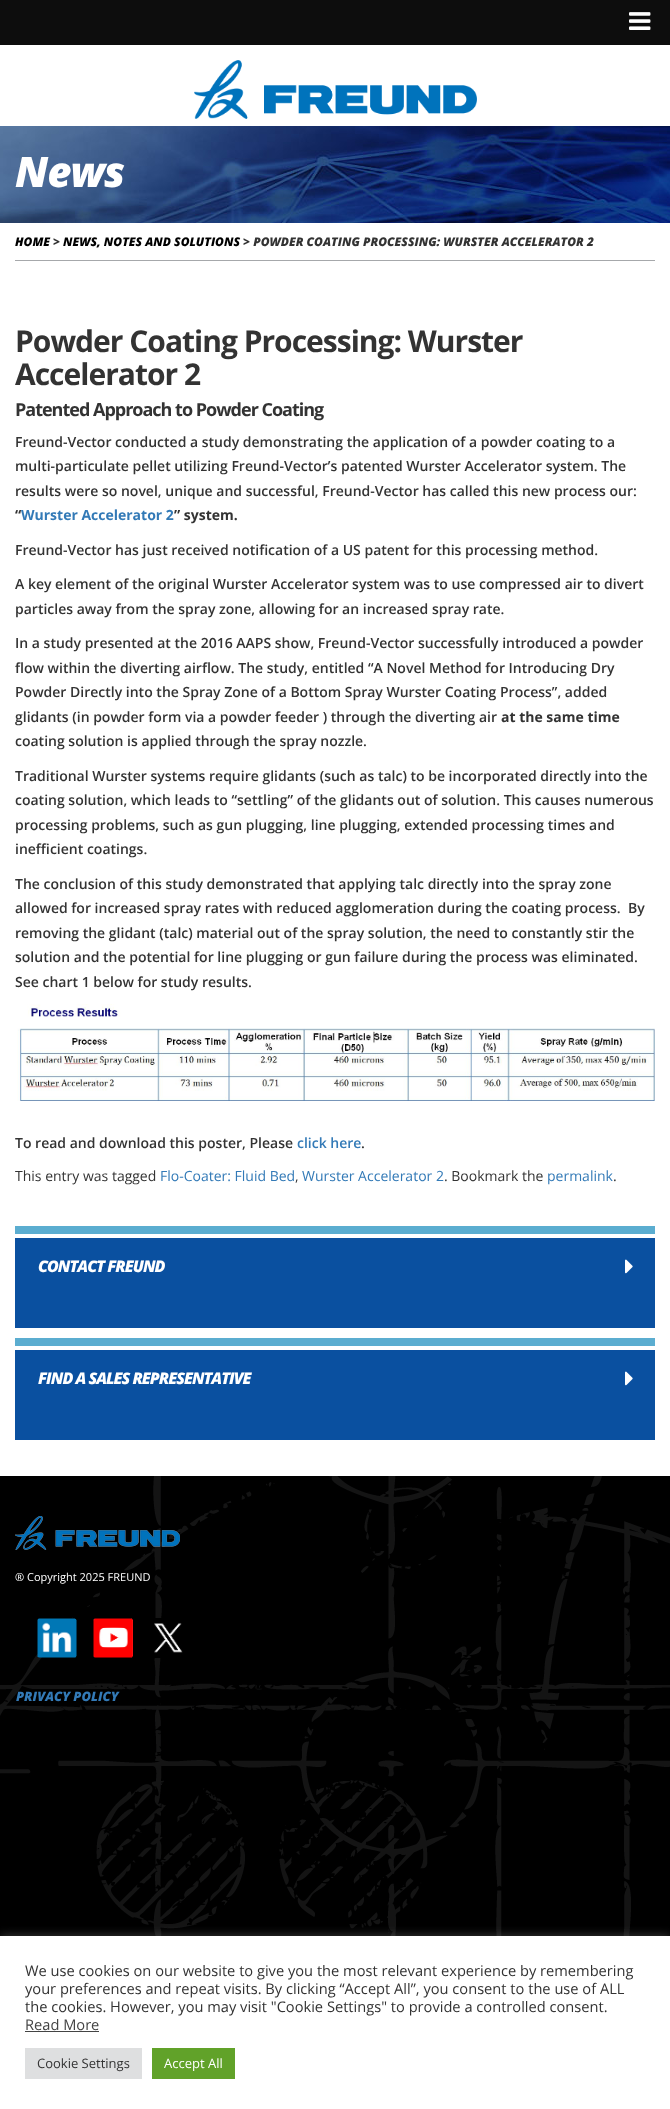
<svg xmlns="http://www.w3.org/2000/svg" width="670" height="2109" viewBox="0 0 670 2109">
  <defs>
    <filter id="blur1" x="-50%" y="-200%" width="200%" height="500%"><feGaussianBlur stdDeviation="5"/></filter>
  </defs>
  <rect width="100%" height="100%" fill="#ffffff"/>
  <image x="0" y="1476" width="670" height="460" href="img1.png"/>
  <rect x="0" y="0" width="670" height="45" fill="#0d0d0d"/>
  <image x="629" y="12" width="22" height="18" href="img2.png"/>
  <image x="194" y="60" width="283" height="59" href="img3.png"/>
  <image x="0" y="126" width="670" height="97" href="img4.png"/>
  <text x="15" y="187" font-family="Open Sans" font-size="42" font-weight="800" font-style="italic" letter-spacing="-1" fill="#ffffff">News</text>
  <rect x="15" y="260" width="640" height="1" fill="#a6a8ab"/>
  <text x="15" y="246" font-family="Open Sans" font-size="12" font-weight="800" font-style="italic" fill="#000000">HOME</text>
  <text x="53" y="246" font-family="Open Sans" font-size="12" font-weight="800" font-style="italic" fill="#333333">&gt;</text>
  <text x="63" y="246" font-family="Open Sans" font-size="12" font-weight="800" font-style="italic" fill="#000000">NEWS, NOTES AND SOLUTIONS</text>
  <text x="243" y="246" font-family="Open Sans" font-size="12" font-weight="800" font-style="italic" fill="#333333">&gt; POWDER COATING PROCESSING: WURSTER ACCELERATOR 2</text>
  <text x="15" y="352" font-family="Open Sans" font-size="30" font-weight="bold" letter-spacing="-1" fill="#333333">Powder Coating Processing: Wurster</text>
  <text x="15" y="385" font-family="Open Sans" font-size="30" font-weight="bold" letter-spacing="-1" fill="#333333">Accelerator 2</text>
  <text x="15" y="416" font-family="Open Sans" font-size="18" font-weight="bold" letter-spacing="-1" fill="#333333">Patented Approach to Powder Coating</text>
  <text x="15" y="447" font-family="Open Sans" font-size="14" font-weight="600" fill="#333333">Freund-Vector conducted a study demonstrating the application of a powder coating to a</text>
  <text x="15" y="471" font-family="Open Sans" font-size="14" font-weight="600" fill="#333333">multi-particulate pellet utilizing Freund-Vector’s patented Wurster Accelerator system. The</text>
  <text x="15" y="496" font-family="Open Sans" font-size="14" font-weight="600" fill="#333333">results were so novel, unique and successful, Freund-Vector has called this new process our:</text>
  <text x="15" y="520" font-family="Open Sans" font-size="14" font-weight="bold" fill="#333333">“</text>
  <text x="21" y="520" font-family="Open Sans" font-size="14" font-weight="bold" fill="#337ab7">Wurster Accelerator 2</text>
  <text x="174" y="520" font-family="Open Sans" font-size="14" font-weight="bold" fill="#333333">” system.</text>
  <text x="15" y="555" font-family="Open Sans" font-size="14" font-weight="600" fill="#333333">Freund-Vector has just received notification of a US patent for this processing method.</text>
  <text x="15" y="589" font-family="Open Sans" font-size="14" font-weight="600" fill="#333333">A key element of the original Wurster Accelerator system was to use compressed air to divert</text>
  <text x="15" y="614" font-family="Open Sans" font-size="14" font-weight="600" fill="#333333">particles away from the spray zone, allowing for an increased spray rate.</text>
  <text x="15" y="648" font-family="Open Sans" font-size="14" font-weight="600" fill="#333333">In a study presented at the 2016 AAPS show, Freund-Vector successfully introduced a powder</text>
  <text x="15" y="673" font-family="Open Sans" font-size="14" font-weight="600" fill="#333333">flow within the diverting airflow. The study, entitled “A Novel Method for Introducing Dry</text>
  <text x="15" y="697" font-family="Open Sans" font-size="14" font-weight="600" fill="#333333">Powder Directly into the Spray Zone of a Bottom Spray Wurster Coating Process”, added</text>
  <text x="15" y="722" font-family="Open Sans" font-size="14" font-weight="600" fill="#333333">glidants (in powder form via a powder feeder ) through the diverting air</text>
  <text x="501" y="722" font-family="Open Sans" font-size="14" font-weight="bold" fill="#333333">at the same time</text>
  <text x="15" y="746" font-family="Open Sans" font-size="14" font-weight="600" fill="#333333">coating solution is applied through the spray nozzle.</text>
  <text x="15" y="781" font-family="Open Sans" font-size="14" font-weight="600" fill="#333333">Traditional Wurster systems require glidants (such as talc) to be incorporated directly into the</text>
  <text x="15" y="805" font-family="Open Sans" font-size="14" font-weight="600" fill="#333333">coating solution, which leads to “settling” of the glidants out of solution. This causes numerous</text>
  <text x="15" y="830" font-family="Open Sans" font-size="14" font-weight="600" fill="#333333">processing problems, such as gun plugging, line plugging, extended processing times and</text>
  <text x="15" y="854" font-family="Open Sans" font-size="14" font-weight="600" fill="#333333">inefficient coatings.</text>
  <text x="15" y="889" font-family="Open Sans" font-size="14" font-weight="600" fill="#333333">The conclusion of this study demonstrated that applying talc directly into the spray zone</text>
  <text x="15" y="913" font-family="Open Sans" font-size="14" font-weight="600" fill="#333333" xml:space="preserve">allowed for increased spray rates with reduced agglomeration during the coating process.  By</text>
  <text x="15" y="938" font-family="Open Sans" font-size="14" font-weight="600" fill="#333333">removing the glidant (talc) material out of the spray solution, the need to constantly stir the</text>
  <text x="15" y="962" font-family="Open Sans" font-size="14" font-weight="600" fill="#333333">solution and the potential for line plugging or gun failure during the process was eliminated.</text>
  <text x="15" y="987" font-family="Open Sans" font-size="14" font-weight="600" fill="#333333">See chart 1 below for study results.</text>
  <image x="17" y="1004" width="638" height="97" href="img5.png"/>
  <text x="15" y="1148" font-family="Open Sans" font-size="14" font-weight="600" fill="#333333">To read and download this poster, Please</text>
  <text x="297" y="1148" font-family="Open Sans" font-size="14" font-weight="600" fill="#337ab7">click here</text>
  <text x="361" y="1148" font-family="Open Sans" font-size="14" font-weight="600" fill="#333333">.</text>
  <text x="15" y="1181" font-family="Open Sans" font-size="14" fill="#333333">This entry was tagged</text>
  <text x="160" y="1181" font-family="Open Sans" font-size="14" fill="#337ab7">Flo-Coater: Fluid Bed</text>
  <text x="295" y="1181" font-family="Open Sans" font-size="14" fill="#333333">,</text>
  <text x="302" y="1181" font-family="Open Sans" font-size="14" fill="#337ab7">Wurster Accelerator 2</text>
  <text x="444" y="1181" font-family="Open Sans" font-size="14" fill="#333333">. Bookmark the</text>
  <text x="547" y="1181" font-family="Open Sans" font-size="14" fill="#337ab7">permalink</text>
  <text x="613" y="1181" font-family="Open Sans" font-size="14" fill="#333333">.</text>
  <rect x="15" y="1226" width="640" height="8" fill="#5badd0"/>
  <rect x="15" y="1238" width="640" height="90" fill="#0a50a0"/>
  <text x="38" y="1272" font-family="Open Sans" font-size="16" font-weight="800" font-style="italic" letter-spacing="-1" fill="#ffffff">CONTACT FREUND</text>
  <image x="625" y="1259" width="8" height="15" href="img6.png"/>
  <rect x="15" y="1338" width="640" height="8" fill="#5badd0"/>
  <rect x="15" y="1350" width="640" height="90" fill="#0a50a0"/>
  <text x="38" y="1384" font-family="Open Sans" font-size="16" font-weight="800" font-style="italic" letter-spacing="-1" fill="#ffffff">FIND A SALES REPRESENTATIVE</text>
  <image x="625" y="1371" width="8" height="15" href="img6.png"/>
  <image x="15" y="1516" width="165" height="34" href="img7.png"/>
  <text x="15" y="1581" font-family="Open Sans" font-size="11" fill="#ffffff">® Copyright 2025 FREUND</text>
  <image x="37" y="1618" width="40" height="40" href="img8.png"/>
  <image x="93" y="1618" width="40" height="40" href="img9.png"/>
  <image x="154" y="1618" width="29" height="40" href="img10.png"/>
  <text x="16" y="1701" font-family="Open Sans" font-size="13" font-weight="800" font-style="italic" fill="#337ab7">PRIVACY POLICY</text>
  <rect x="0" y="1935" width="670" height="173" fill="#acabab" fill-opacity="0.3" filter="url(#blur1)"/>
  <rect x="0" y="1936" width="670" height="173" fill="#ffffff"/>
  <text x="25" y="1976" font-family="Open Sans" font-size="14.65" fill="#333333">We use cookies on our website to give you the most relevant experience by remembering</text>
  <text x="25" y="1994" font-family="Open Sans" font-size="14.65" fill="#333333">your preferences and repeat visits. By clicking “Accept All”, you consent to the use of ALL</text>
  <text x="25" y="2012" font-family="Open Sans" font-size="14.65" fill="#333333">the cookies. However, you may visit "Cookie Settings" to provide a controlled consent.</text>
  <text x="25" y="2030" font-family="Open Sans" font-size="14.65" fill="#444444">Read More</text>
  <rect x="25" y="2031" width="74" height="1" fill="#444444"/>
  <rect x="25" y="2048" width="117" height="31" fill="#dedfe0"/>
  <text x="37" y="2068" font-family="Open Sans" font-size="13" fill="#333333">Cookie Settings</text>
  <rect x="152" y="2048" width="83" height="31" fill="#61a229"/>
  <text x="164" y="2068" font-family="Open Sans" font-size="13" fill="#ffffff">Accept All</text>
</svg>
